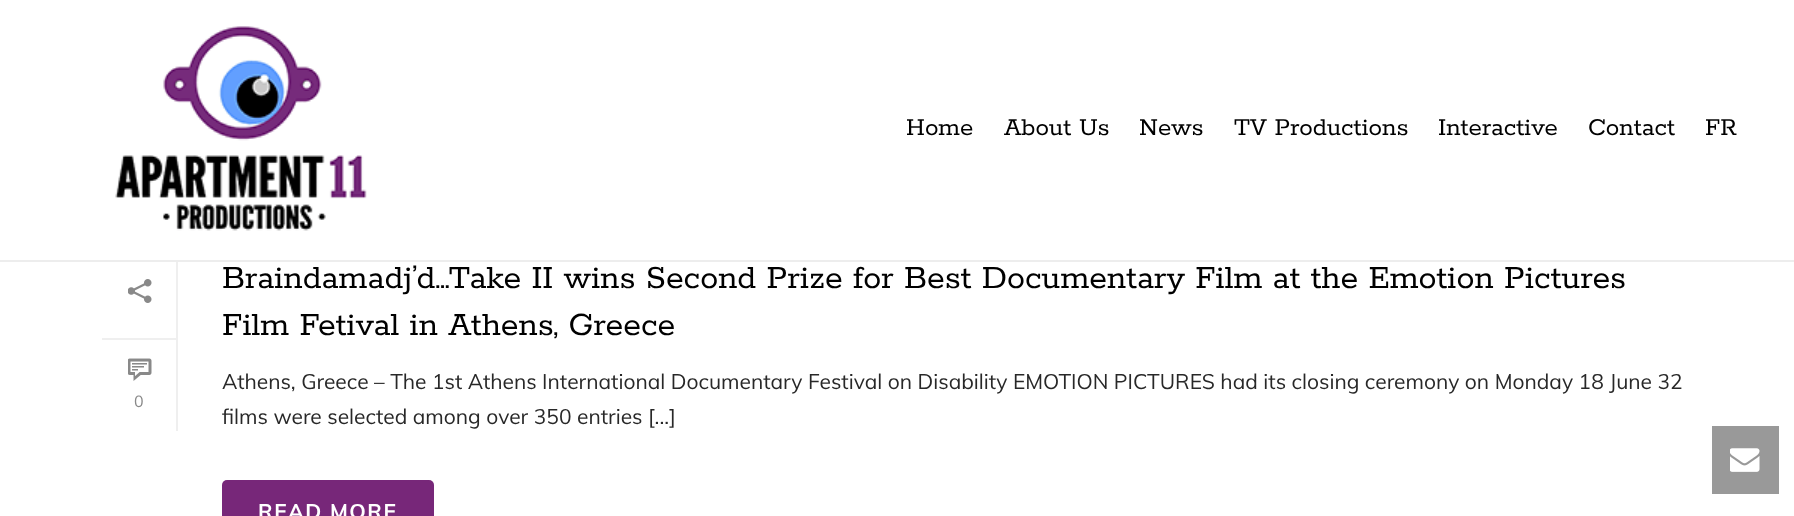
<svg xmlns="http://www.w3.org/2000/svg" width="1794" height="516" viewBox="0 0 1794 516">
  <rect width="100%" height="100%" fill="#ffffff"/>
  <rect x="0" y="260" width="1794" height="2" fill="#ededed"/>
  <image x="115" y="26" width="252" height="205" href="img1.png"/>
  <text x="906" y="135" font-family="Rokkitt" font-size="27" fill="#000000">Home</text>
  <text x="1004" y="135" font-family="Rokkitt" font-size="27" fill="#000000">About Us</text>
  <text x="1139" y="135" font-family="Rokkitt" font-size="27" fill="#000000">News</text>
  <text x="1234" y="135" font-family="Rokkitt" font-size="27" fill="#000000">TV Productions</text>
  <text x="1438" y="135" font-family="Rokkitt" font-size="27" fill="#000000">Interactive</text>
  <text x="1588" y="135" font-family="Rokkitt" font-size="27" fill="#000000">Contact</text>
  <text x="1705" y="135" font-family="Rokkitt" font-size="27" fill="#000000">FR</text>
  <rect x="176" y="262" width="2" height="169" fill="#efefef"/>
  <rect x="102" y="338" width="74" height="2" fill="#efefef"/>
  <image x="128" y="279" width="24" height="24" href="img2.png"/>
  <image x="128" y="358" width="24" height="23" href="img3.png"/>
  <text x="134" y="407" font-family="Muli" font-size="16" fill="#898989">0</text>
  <text x="222" y="288" font-family="Rokkitt" font-size="36" fill="#000000">Braindamadj’d…Take II wins Second Prize for Best Documentary Film at the Emotion Pictures</text>
  <text x="222" y="335" font-family="Rokkitt" font-size="36" fill="#000000">Film Fetival in Athens, Greece</text>
  <text x="222" y="389" font-family="Muli" font-size="21" fill="#282828">Athens, Greece – The 1st Athens International Documentary Festival on Disability EMOTION PICTURES had its closing ceremony on Monday 18 June 32</text>
  <text x="222" y="424" font-family="Muli" font-size="21" fill="#282828">films were selected among over 350 entries [...]</text>
  <rect x="222" y="480" width="212" height="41" rx="5" fill="#772779"/>
  <text x="258" y="519" font-family="Muli" font-size="21" font-weight="bold" letter-spacing="1.5" fill="#ffffff">READ MORE</text>
  <rect x="1712" y="426" width="67" height="68" fill="#999999"/>
  <image x="1730" y="448" width="30" height="24" href="img4.png"/>
</svg>
